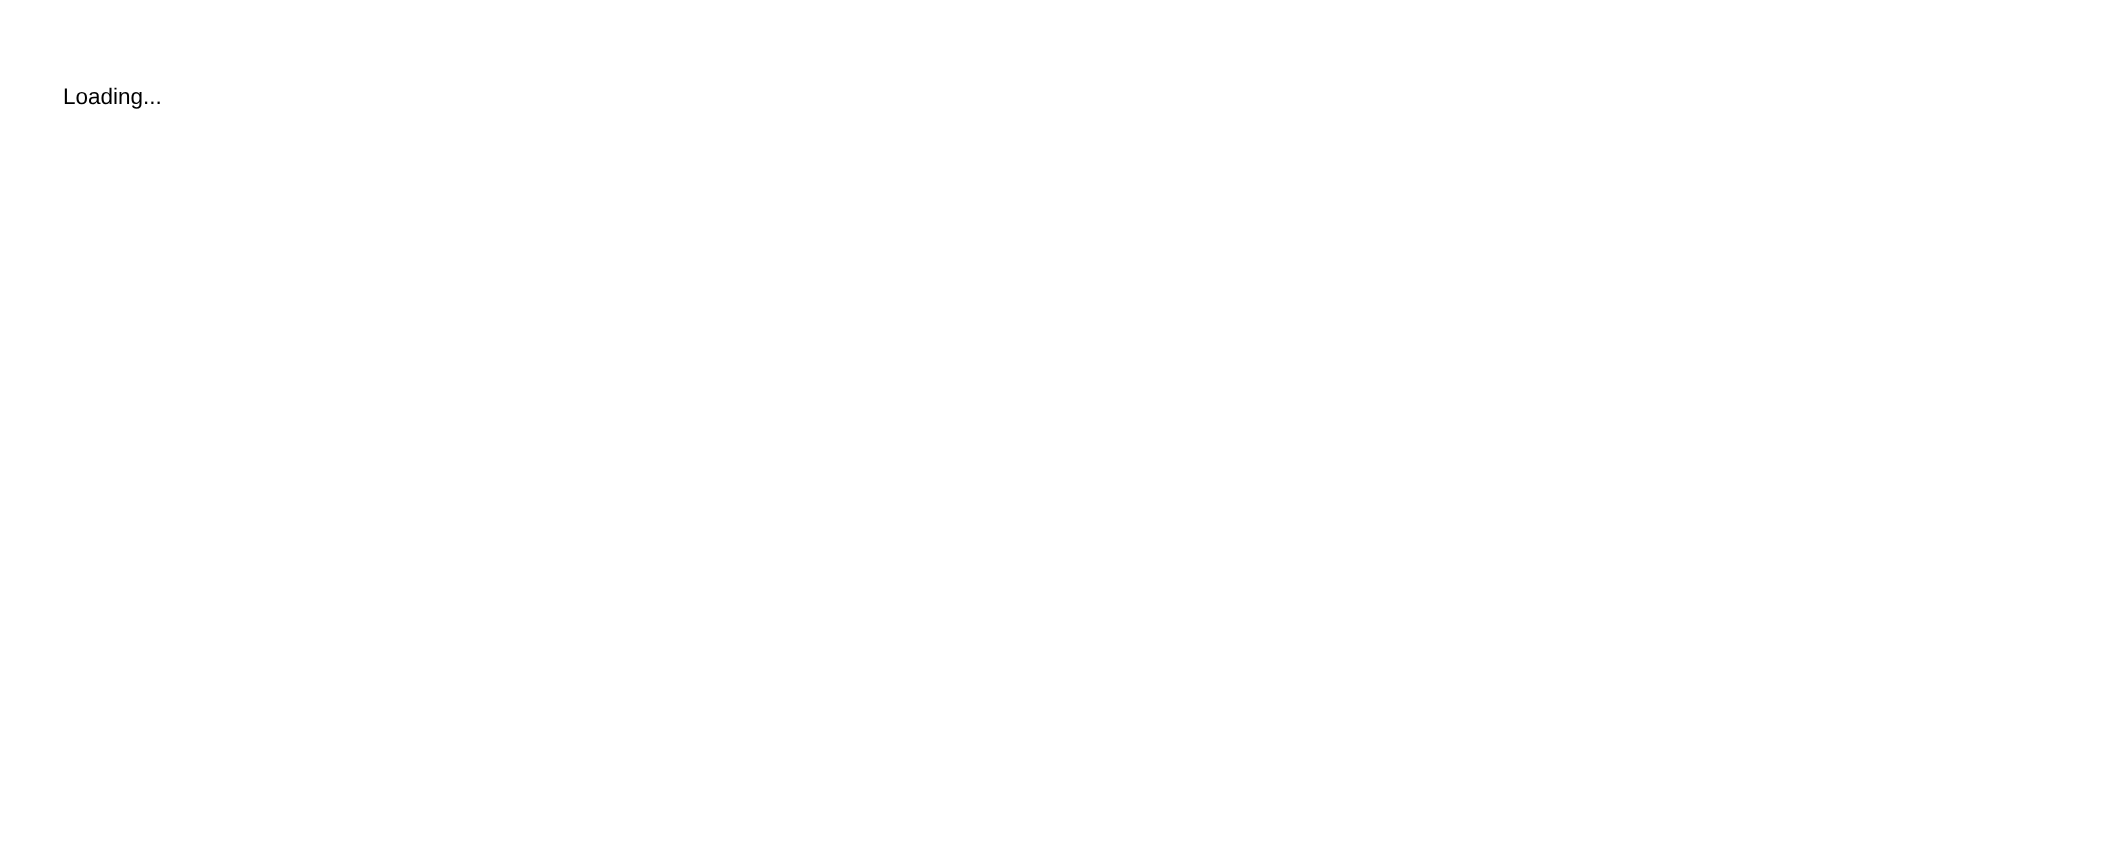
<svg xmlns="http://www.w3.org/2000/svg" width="2104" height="856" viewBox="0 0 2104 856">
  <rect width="100%" height="100%" fill="#ffffff"/>
  <text x="63" y="104" font-family="Liberation Sans" font-size="22.5" fill="#000000">Loading...</text>
</svg>
